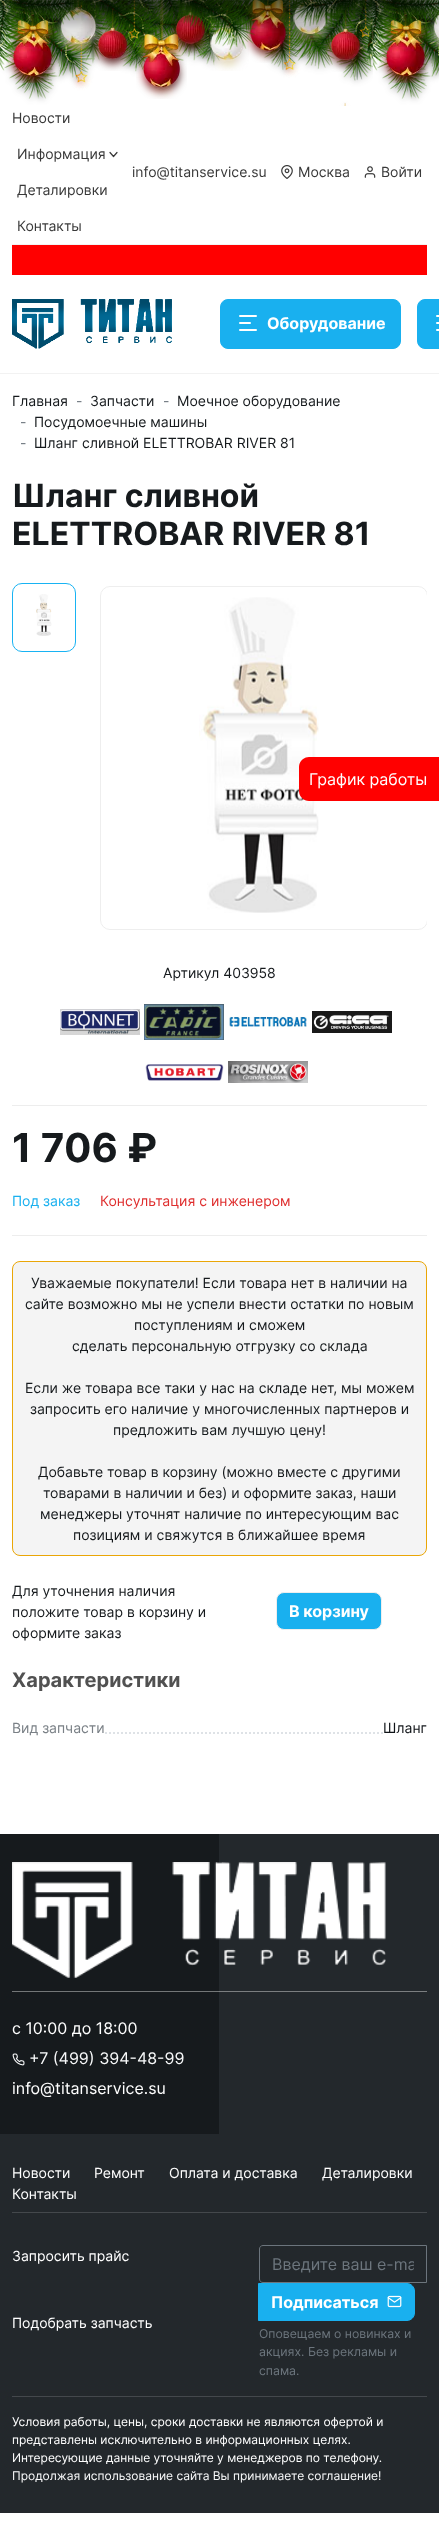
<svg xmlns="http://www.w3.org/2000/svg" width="439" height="2523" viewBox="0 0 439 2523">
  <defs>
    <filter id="blur1" x="-50%" y="-200%" width="200%" height="500%"><feGaussianBlur stdDeviation="15"/></filter>
    <clipPath id="clip1"><rect x="100" y="586" width="327" height="344"/></clipPath>
    <clipPath id="clip2"><rect x="272" y="2254" width="142" height="20"/></clipPath>
  </defs>
  <rect width="100%" height="100%" fill="#ffffff"/>
  <image x="0" y="0" width="439" height="106" href="img1.png"/>
  <image x="6" y="5" width="53" height="78" href="img10.png"/>
  <image x="0" y="0" width="25" height="71" href="img2.png"/>
  <image x="54" y="0" width="48" height="51" href="img4.png"/>
  <image x="25" y="0" width="61" height="27" href="img3.png"/>
  <image x="136" y="0" width="51" height="99" href="img5.png"/>
  <image x="169" y="2" width="42" height="54" href="img12.png"/>
  <image x="204" y="6" width="45" height="65" href="img13.png"/>
  <image x="177" y="0" width="28" height="31" href="img6.png"/>
  <image x="243" y="0" width="49" height="63" href="img8.png"/>
  <image x="205" y="0" width="50" height="50" href="img7.png"/>
  <image x="287" y="0" width="46" height="45" href="img9.png"/>
  <image x="92" y="9" width="41" height="62" href="img11.png"/>
  <image x="325" y="10" width="41" height="62" href="img16.png"/>
  <image x="289" y="0" width="78" height="28" href="img14.png"/>
  <image x="367" y="0" width="6" height="69" href="img15.png"/>
  <image x="379" y="5" width="53" height="78" href="img10.png"/>
  <image x="373" y="0" width="25" height="71" href="img2.png"/>
  <image x="427" y="11" width="12" height="40" href="img18.png"/>
  <image x="398" y="0" width="41" height="27" href="img17.png"/>
  <rect x="0" y="-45" width="439" height="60" fill="#000000" fill-opacity="0.75" filter="url(#blur1)"/>
  <rect x="0" y="373" width="439" height="1" fill="#f2f2f2"/>
  <rect x="12" y="244" width="415" height="1" fill="#f2f2f2"/>
  <text x="12" y="123" font-family="Inter" font-size="14" fill="#393939">Новости</text>
  <text x="17" y="159" font-family="Inter" font-size="14" fill="#393939">Информация</text>
  <path d="M110 152.5L113.5 156.5L117 152.5" fill="none" stroke="#393939" stroke-width="1.2" stroke-linecap="round" stroke-linejoin="round"/>
  <text x="17" y="195" font-family="Inter" font-size="14" fill="#393939">Деталировки</text>
  <text x="17" y="231" font-family="Inter" font-size="14" fill="#393939">Контакты</text>
  <text x="132" y="177" font-family="Inter" font-size="14" fill="#393939">info@titanservice.su</text>
  <image x="281" y="165" width="12" height="14" href="img19.png"/>
  <text x="298" y="177" font-family="Inter" font-size="14" fill="#393939">Москва</text>
  <image x="364" y="166" width="12" height="12" href="img20.png"/>
  <text x="381" y="177" font-family="Inter" font-size="14" fill="#393939">Войти</text>
  <rect x="12" y="245" width="415" height="30" fill="#ff0000"/>
  <image x="12" y="299" width="160" height="50" href="img21.png"/>
  <rect x="220.5" y="299.5" width="180" height="49" rx="7.5" fill="#19b0ef" stroke="#19b0ef"/>
  <rect x="239" y="315" width="18" height="2" rx="1" fill="#ffffff"/>
  <rect x="239" y="322" width="12" height="2" rx="1" fill="#ffffff"/>
  <rect x="239" y="329" width="18" height="2" rx="1" fill="#ffffff"/>
  <text x="267" y="329" font-family="Inter" font-size="16" font-weight="bold" fill="#ffffff">Оборудование</text>
  <rect x="417.5" y="299.5" width="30" height="49" rx="7.5" fill="#19b0ef" stroke="#19b0ef"/>
  <rect x="436" y="315" width="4" height="2" rx="1" fill="#ffffff"/>
  <rect x="436" y="322" width="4" height="2" rx="1" fill="#ffffff"/>
  <rect x="436" y="329" width="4" height="2" rx="1" fill="#ffffff"/>
  <text x="12" y="406" font-family="Inter" font-size="14" fill="#161a1d">Главная</text>
  <text x="76" y="406" font-family="Inter" font-size="14" fill="#6c757d">-</text>
  <text x="90" y="406" font-family="Inter" font-size="14" fill="#161a1d">Запчасти</text>
  <text x="163" y="406" font-family="Inter" font-size="14" fill="#6c757d">-</text>
  <text x="177" y="406" font-family="Inter" font-size="14" fill="#161a1d">Моечное оборудование</text>
  <text x="20" y="427" font-family="Inter" font-size="14" fill="#6c757d">-</text>
  <text x="34" y="427" font-family="Inter" font-size="14" fill="#161a1d">Посудомоечные машины</text>
  <text x="20" y="448" font-family="Inter" font-size="14" fill="#6c757d">-</text>
  <text x="34" y="448" font-family="Inter" font-size="14" fill="#161a1d">Шланг сливной ELETTROBAR RIVER 81</text>
  <text x="12" y="507" font-family="Inter" font-size="32" font-weight="bold" fill="#161a1d">Шланг сливной</text>
  <text x="12" y="545" font-family="Inter" font-size="32" font-weight="bold" fill="#161a1d">ELETTROBAR RIVER 81</text>
  <rect x="12.5" y="583.5" width="63" height="68" rx="9.5" fill="none" stroke="#18b3f3"/>
  <image x="36" y="594" width="16" height="42" href="img22.png"/>
  <g clip-path="url(#clip1)">
    <rect x="100.5" y="586.5" width="327" height="343" rx="9.5" fill="none" stroke="#eeeeee"/>
  </g>
  <image x="199" y="597" width="120" height="316" href="img23.png"/>
  <rect x="12" y="1105" width="415" height="1" fill="#ededed"/>
  <text x="163" y="978" font-family="Inter" font-size="14" fill="#161a1d">Артикул 403958</text>
  <image x="60" y="1009" width="80" height="26" href="img24.png"/>
  <image x="144" y="1004" width="80" height="36" href="img25.png"/>
  <image x="229" y="1016" width="78" height="11" href="img26.png"/>
  <image x="312" y="1011" width="80" height="22" href="img27.png"/>
  <image x="145" y="1064" width="79" height="17" href="img28.png"/>
  <image x="228" y="1061" width="80" height="22" href="img29.png"/>
  <text x="12" y="1162" font-family="Inter" font-size="40" font-weight="bold" fill="#161a1d">1 706 ₽</text>
  <rect x="12" y="1235" width="415" height="1" fill="#ededed"/>
  <text x="12" y="1206" font-family="Inter" font-size="14" fill="#19b0ef">Под заказ</text>
  <text x="100" y="1206" font-family="Inter" font-size="14" fill="#df2e2e">Консультация с инженером</text>
  <rect x="12.5" y="1261.5" width="414" height="294" rx="7.5" fill="#f4f4f4" stroke="#eaa606"/>
  <text x="31" y="1288" font-family="Inter" font-size="14" fill="#161a1d">Уважаемые покупатели! Если товара нет в наличии на</text>
  <text x="25" y="1309" font-family="Inter" font-size="14" fill="#161a1d">сайте возможно мы не успели внести остатки по новым</text>
  <text x="134" y="1330" font-family="Inter" font-size="14" fill="#161a1d">поступлениям и сможем</text>
  <text x="72" y="1351" font-family="Inter" font-size="14" fill="#161a1d">сделать персональную отгрузку со склада</text>
  <text x="25" y="1393" font-family="Inter" font-size="14" fill="#161a1d">Если же товара все таки у нас на складе нет, мы можем</text>
  <text x="30" y="1414" font-family="Inter" font-size="14" fill="#161a1d">запросить его наличие у многочисленных партнеров и</text>
  <text x="113" y="1435" font-family="Inter" font-size="14" fill="#161a1d">предложить вам лучшую цену!</text>
  <text x="38" y="1477" font-family="Inter" font-size="14" fill="#161a1d">Добавьте товар в корзину (можно вместе с другими</text>
  <text x="43" y="1498" font-family="Inter" font-size="14" fill="#161a1d">товарами в наличии и без) и оформите заказ, наши</text>
  <text x="40" y="1519" font-family="Inter" font-size="14" fill="#161a1d">менеджеры уточнят наличие по интересующим вас</text>
  <text x="73" y="1540" font-family="Inter" font-size="14" fill="#161a1d">позициям и свяжутся в ближайшее время</text>
  <text x="12" y="1596" font-family="Inter" font-size="14" fill="#161a1d">Для уточнения наличия</text>
  <text x="12" y="1617" font-family="Inter" font-size="14" fill="#161a1d">положите товар в корзину и</text>
  <text x="12" y="1638" font-family="Inter" font-size="14" fill="#161a1d">оформите заказ</text>
  <rect x="276.5" y="1592.5" width="105" height="37" rx="7.5" fill="#19b0ef" stroke="#eeeeee"/>
  <text x="289" y="1617" font-family="Inter" font-size="16" font-weight="bold" fill="#ffffff">В корзину</text>
  <text x="12" y="1687" font-family="Inter" font-size="20" font-weight="bold" fill="#515151">Характеристики</text>
  <text x="12" y="1733" font-family="Inter" font-size="14" fill="#7a8086">Вид запчасти</text>
  <path d="M105 1733H383" fill="none" stroke="#dee2e6" stroke-width="2" stroke-dasharray="2 2"/>
  <text x="383" y="1733" font-family="Inter" font-size="14" fill="#0f1317">Шланг</text>
  <path d="M309 757H439V801H309C303.5 801 299 796.5 299 791V767C299 761.5 303.5 757 309 757Z" fill="#ff0000"/>
  <text x="309" y="785" font-family="Inter" font-size="16" fill="#ffffff">График работы</text>
  <rect x="0" y="1834" width="219" height="300" fill="#161a1d"/>
  <rect x="12" y="1991" width="207" height="1" fill="#737677"/>
  <rect x="219" y="1834" width="220" height="300" fill="#23282c"/>
  <rect x="219" y="1991" width="208" height="1" fill="#7b7e80"/>
  <image x="12" y="1862" width="374" height="116" href="img30.png"/>
  <text x="12" y="2034" font-family="Inter" font-size="16" fill="#ffffff">с 10:00 до 18:00</text>
  <image x="12" y="2053" width="13" height="13" href="img31.png"/>
  <text x="29" y="2064" font-family="Inter" font-size="16" fill="#f8f9fa">+7 (499) 394-48-99</text>
  <text x="12" y="2094" font-family="Inter" font-size="16" fill="#ffffff">info@titanservice.su</text>
  <rect x="0" y="2134" width="439" height="379" fill="#23282c"/>
  <rect x="12" y="2212" width="415" height="1" fill="#44484c"/>
  <text x="12" y="2178" font-family="Inter" font-size="14" fill="#ffffff">Новости</text>
  <text x="94" y="2178" font-family="Inter" font-size="14" fill="#ffffff">Ремонт</text>
  <text x="169" y="2178" font-family="Inter" font-size="14" fill="#ffffff">Оплата и доставка</text>
  <text x="322" y="2178" font-family="Inter" font-size="14" fill="#ffffff">Деталировки</text>
  <text x="12" y="2199" font-family="Inter" font-size="14" fill="#ffffff">Контакты</text>
  <rect x="12" y="2396" width="415" height="1" fill="#44484c"/>
  <text x="12" y="2261" font-family="Inter" font-size="14" fill="#ffffff">Запросить прайс</text>
  <text x="12" y="2328" font-family="Inter" font-size="14" fill="#ffffff">Подобрать запчасть</text>
  <path d="M263 2245.5H426.5V2282.5H263C261 2282.5 259.5 2281 259.5 2279V2249C259.5 2247 261 2245.5 263 2245.5Z" fill="none" stroke="#6c757d"/>
  <g clip-path="url(#clip2)">
    <text x="272" y="2270" font-family="Inter" font-size="16" fill="#6c757d">Введите ваш e-ma</text>
  </g>
  <path d="M258.5 2283.5H407C411 2283.5 414.5 2287 414.5 2291V2313C414.5 2317 411 2320.5 407 2320.5H258.5Z" fill="#19b0ef" stroke="#19b0ef"/>
  <text x="271" y="2308" font-family="Inter" font-size="16" font-weight="bold" fill="#ffffff">Подписаться</text>
  <image x="387" y="2295" width="15" height="13" href="img32.png"/>
  <text x="259" y="2338" font-family="Inter" font-size="12.25" fill="#6c757d">Оповещаем о новинках и</text>
  <text x="259" y="2356" font-family="Inter" font-size="12.25" fill="#6c757d">акциях. Без рекламы и</text>
  <text x="259" y="2375" font-family="Inter" font-size="12.25" fill="#6c757d">спама.</text>
  <text x="12" y="2426" font-family="Inter" font-size="12" fill="#ffffff">Условия работы, цены, сроки доставки не являются офертой и</text>
  <text x="12" y="2444" font-family="Inter" font-size="12" fill="#ffffff">представлены исключительно в информационных целях.</text>
  <text x="12" y="2462" font-family="Inter" font-size="12" fill="#ffffff">Интересующие данные уточняйте у менеджеров по телефону.</text>
  <text x="12" y="2480" font-family="Inter" font-size="12" fill="#f8f9fa">Продолжая использование сайта Вы принимаете соглашение!</text>
</svg>
